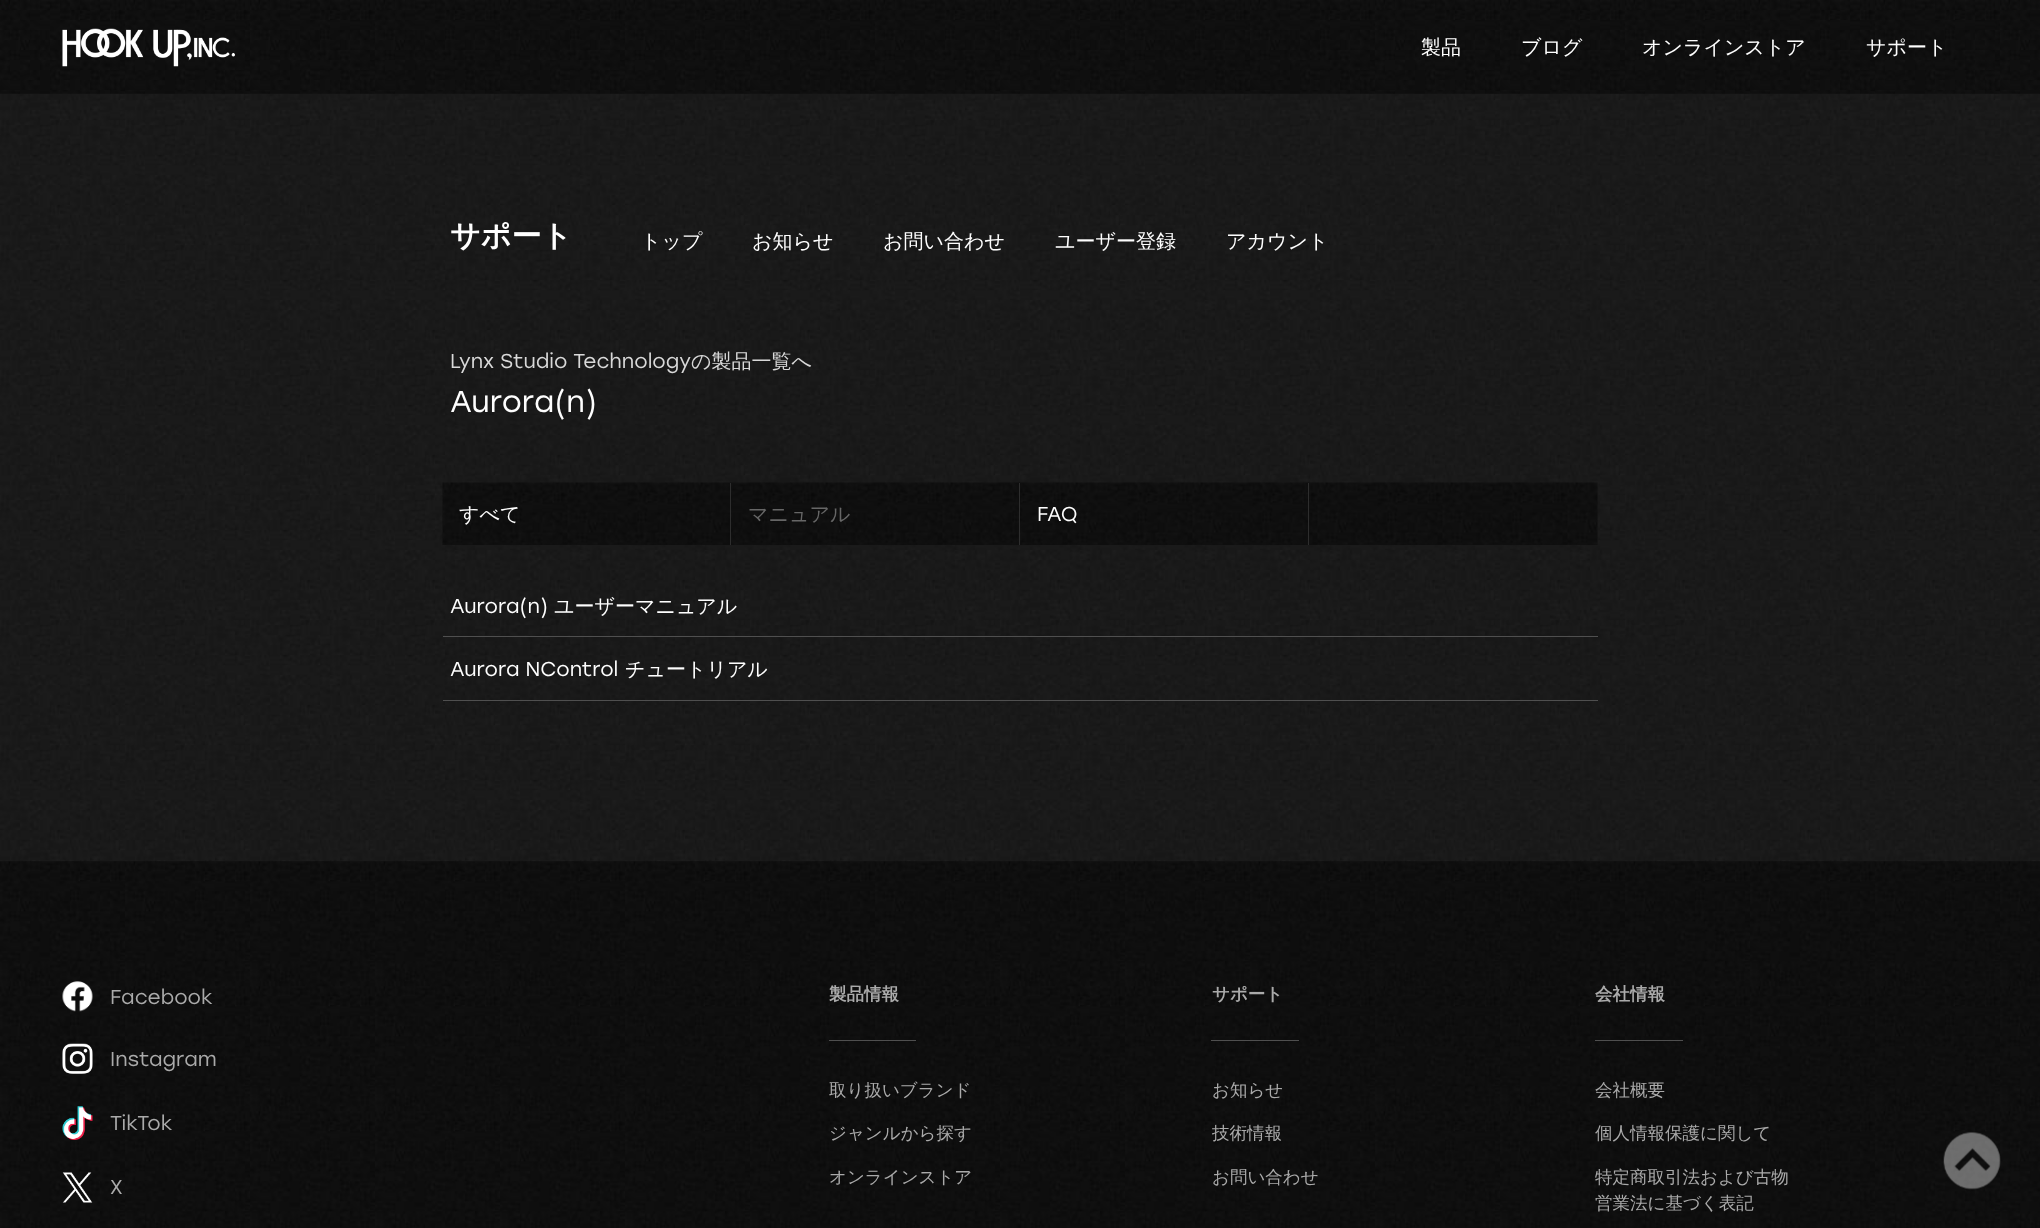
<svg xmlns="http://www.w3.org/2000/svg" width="2040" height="1228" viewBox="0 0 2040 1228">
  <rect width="100%" height="100%" fill="#ffffff"/>
  <image x="0" y="93" width="2040" height="769" href="img1.png"/>
  <image x="0" y="0" width="2040" height="94" href="img2.png"/>
  <image x="62" y="28" width="173" height="39" href="img3.png"/>
  <text x="1421" y="54" font-family="WenQuanYi Zen Hei" font-size="20" font-weight="500" fill="#fefefe">製品</text>
  <text x="1521" y="54" font-family="WenQuanYi Zen Hei" font-size="20" font-weight="500" fill="#fefefe">ブログ</text>
  <text x="1642" y="54" font-family="WenQuanYi Zen Hei" font-size="20" font-weight="500" fill="#fefefe">オンラインストア</text>
  <text x="1866" y="54" font-family="WenQuanYi Zen Hei" font-size="20" font-weight="500" fill="#fefefe">サポート</text>
  <text x="450" y="246" font-family="WenQuanYi Zen Hei" font-size="30" font-weight="bold" fill="#fefefe">サポート</text>
  <text x="641" y="248" font-family="WenQuanYi Zen Hei" font-size="20" font-weight="500" fill="#fefefe">トップ</text>
  <text x="752" y="248" font-family="WenQuanYi Zen Hei" font-size="20" font-weight="500" fill="#fefefe">お知らせ</text>
  <text x="883" y="248" font-family="WenQuanYi Zen Hei" font-size="20" font-weight="500" fill="#fefefe">お問い合わせ</text>
  <text x="1055" y="248" font-family="WenQuanYi Zen Hei" font-size="20" font-weight="500" fill="#fefefe">ユーザー登録</text>
  <text x="1226" y="248" font-family="WenQuanYi Zen Hei" font-size="20" font-weight="500" fill="#fefefe">アカウント</text>
  <text x="450" y="368" font-family="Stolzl" font-size="20" fill="#d9d9d9">Lynx Studio Technology</text>
  <text x="691" y="368" font-family="WenQuanYi Zen Hei" font-size="20" font-weight="500" fill="#d9d9d9">の製品一覧へ</text>
  <text x="450" y="412" font-family="Stolzl" font-size="30" fill="#fefefe">Aurora(n)</text>
  <image x="442" y="482" width="1156" height="63" href="img4.png"/>
  <rect x="730" y="483" width="1" height="62" fill="#2d2d2d"/>
  <text x="459" y="521" font-family="WenQuanYi Zen Hei" font-size="20" font-weight="500" fill="#fefefe">すべて</text>
  <rect x="1019" y="483" width="1" height="62" fill="#2d2d2d"/>
  <text x="748" y="521" font-family="WenQuanYi Zen Hei" font-size="20" font-weight="500" fill="#666666">マニュアル</text>
  <rect x="1308" y="483" width="1" height="62" fill="#2d2d2d"/>
  <text x="1037" y="521" font-family="Stolzl" font-size="20" fill="#fefefe">FAQ</text>
  <rect x="443" y="636" width="1155" height="1" fill="#4f4f4f"/>
  <text x="450" y="613" font-family="Stolzl" font-size="20" fill="#fefefe">Aurora(n)</text>
  <text x="554" y="613" font-family="WenQuanYi Zen Hei" font-size="20" font-weight="500" fill="#fefefe">ユーザーマニュアル</text>
  <rect x="443" y="700" width="1155" height="1" fill="#4f4f4f"/>
  <text x="450" y="676" font-family="Stolzl" font-size="20" fill="#fefefe">Aurora NControl</text>
  <text x="625" y="676" font-family="WenQuanYi Zen Hei" font-size="20" font-weight="500" fill="#fefefe">チュートリアル</text>
  <image x="0" y="861" width="2040" height="367" href="img5.png"/>
  <image x="62" y="981" width="31" height="31" href="img6.png"/>
  <text x="110" y="1004" font-family="Stolzl" font-size="20" fill="#aaaaaa">Facebook</text>
  <image x="62" y="1043" width="31" height="31" href="img7.png"/>
  <text x="110" y="1066" font-family="Stolzl" font-size="20" fill="#aaaaaa">Instagram</text>
  <image x="62" y="1106" width="31" height="34" href="img8.png"/>
  <text x="110" y="1130" font-family="Stolzl" font-size="20" fill="#aaaaaa">TikTok</text>
  <image x="62" y="1172" width="31" height="31" href="img9.png"/>
  <text x="110" y="1194" font-family="Stolzl" font-size="20" fill="#aaaaaa">X</text>
  <text x="829" y="1000" font-family="WenQuanYi Zen Hei" font-size="17.5" font-weight="bold" fill="#aaaaaa">製品情報</text>
  <rect x="829" y="1040" width="87" height="1" fill="#4f4f4f"/>
  <text x="829" y="1096" font-family="WenQuanYi Zen Hei" font-size="17.5" font-weight="500" fill="#aaaaaa">取り扱いブランド</text>
  <text x="829" y="1139" font-family="WenQuanYi Zen Hei" font-size="17.5" font-weight="500" fill="#aaaaaa">ジャンルから探す</text>
  <text x="829" y="1183" font-family="WenQuanYi Zen Hei" font-size="17.5" font-weight="500" fill="#aaaaaa">オンラインストア</text>
  <text x="1212" y="1000" font-family="WenQuanYi Zen Hei" font-size="17.5" font-weight="bold" fill="#aaaaaa">サポート</text>
  <rect x="1211" y="1040" width="88" height="1" fill="#4f4f4f"/>
  <text x="1212" y="1096" font-family="WenQuanYi Zen Hei" font-size="17.5" font-weight="500" fill="#aaaaaa">お知らせ</text>
  <text x="1212" y="1139" font-family="WenQuanYi Zen Hei" font-size="17.5" font-weight="500" fill="#aaaaaa">技術情報</text>
  <text x="1212" y="1183" font-family="WenQuanYi Zen Hei" font-size="17.5" font-weight="500" fill="#aaaaaa">お問い合わせ</text>
  <text x="1595" y="1000" font-family="WenQuanYi Zen Hei" font-size="17.5" font-weight="bold" fill="#aaaaaa">会社情報</text>
  <rect x="1595" y="1040" width="88" height="1" fill="#4f4f4f"/>
  <text x="1595" y="1096" font-family="WenQuanYi Zen Hei" font-size="17.5" font-weight="500" fill="#aaaaaa">会社概要</text>
  <text x="1595" y="1139" font-family="WenQuanYi Zen Hei" font-size="17.5" font-weight="500" fill="#aaaaaa">個人情報保護に関して</text>
  <text x="1595" y="1183" font-family="WenQuanYi Zen Hei" font-size="17.5" font-weight="500" fill="#aaaaaa">特定商取引法および古物</text>
  <text x="1595" y="1209" font-family="WenQuanYi Zen Hei" font-size="17.5" font-weight="500" fill="#aaaaaa">営業法に基づく表記</text>
  <image x="1943" y="1132" width="58" height="58" href="img10.png"/>
</svg>
